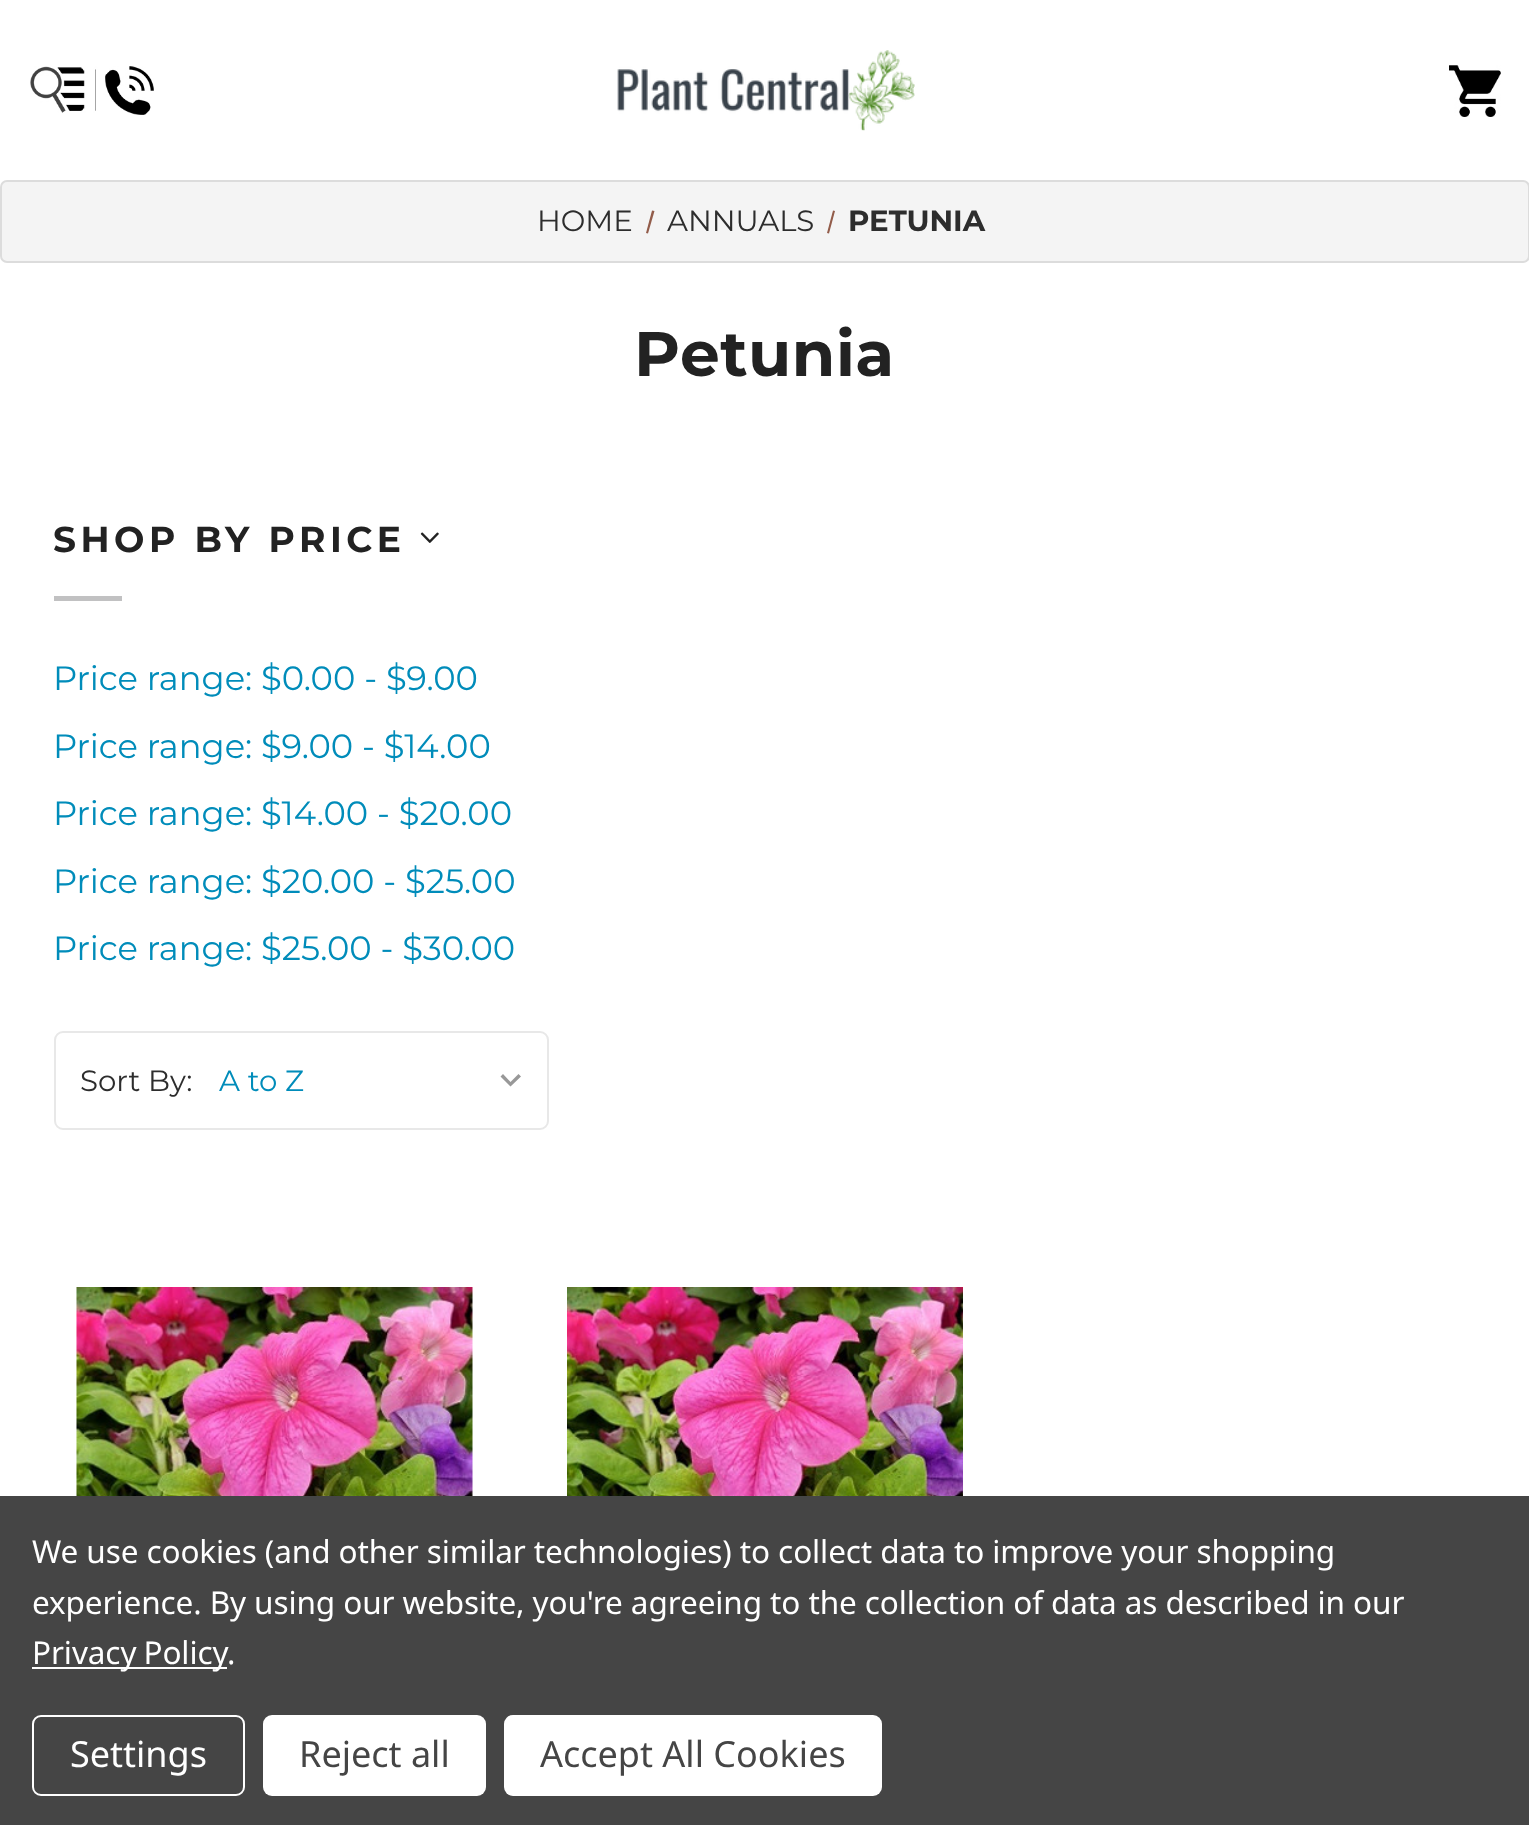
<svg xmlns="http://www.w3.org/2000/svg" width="1529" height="1825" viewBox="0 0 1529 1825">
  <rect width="100%" height="100%" fill="#ffffff"/>
  <image x="30" y="66" width="124" height="49" href="img1.png"/>
  <image x="617" y="50" width="298" height="81" href="img2.png"/>
  <image x="1449" y="65" width="52" height="52" href="img3.png"/>
  <rect x="1" y="181" width="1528" height="81" rx="6" fill="#f4f4f4" stroke="#dcdcdc" stroke-width="2"/>
  <text x="537" y="231" font-family="Montserrat" font-size="29.25" fill="#2d2d2d">HOME</text>
  <path d="M652 210.5L654.5 211L648 233.5L646 233Z" fill="#925c4a"/>
  <text x="667" y="231" font-family="Montserrat" font-size="29.25" fill="#2d2d2d">ANNUALS</text>
  <path d="M833 210.5L835 211L829 233.5L827 233Z" fill="#925c4a"/>
  <text x="848" y="231" font-family="Montserrat" font-size="29.25" font-weight="bold" fill="#2d2d2d">PETUNIA</text>
  <text x="634" y="376" font-family="Montserrat" font-size="63" font-weight="bold" letter-spacing="0.5" fill="#222222">Petunia</text>
  <text x="53" y="552" font-family="Montserrat" font-size="36" font-weight="bold" letter-spacing="4.5" fill="#222222">SHOP BY PRICE</text>
  <image x="420" y="532" width="19" height="11" href="img4.png"/>
  <rect x="54" y="596" width="68" height="5" fill="#c1c1c2"/>
  <text x="53" y="690" font-family="Montserrat" font-size="33.75" fill="#008cba">Price range: $0.00 - $9.00</text>
  <text x="53" y="758" font-family="Montserrat" font-size="33.75" fill="#008cba">Price range: $9.00 - $14.00</text>
  <text x="53" y="825" font-family="Montserrat" font-size="33.75" fill="#008cba">Price range: $14.00 - $20.00</text>
  <text x="53" y="893" font-family="Montserrat" font-size="33.75" fill="#008cba">Price range: $20.00 - $25.00</text>
  <text x="53" y="960" font-family="Montserrat" font-size="33.75" fill="#008cba">Price range: $25.00 - $30.00</text>
  <rect x="55" y="1032" width="493" height="97" rx="8" fill="none" stroke="#e8e8e8" stroke-width="2"/>
  <text x="80" y="1091" font-family="Montserrat" font-size="29.25" fill="#2d2d2d">Sort By:</text>
  <path d="M518.5 1074L510.5 1082L503 1074L500.5 1076.5L510.5 1086.5L521 1076.5Z" fill="#989898"/>
  <text x="219" y="1091" font-family="Montserrat" font-size="29.25" fill="#008cba">A to Z</text>
  <image x="76" y="1287" width="397" height="209" href="img5.png"/>
  <image x="567" y="1287" width="396" height="209" href="img6.png"/>
  <rect x="0" y="1496" width="1529" height="329" fill="#454545"/>
  <text x="32" y="1563" font-family="Noto Sans" font-size="31.5" letter-spacing="-0.1" fill="#ffffff">We use cookies (and other similar technologies) to collect data to improve your shopping</text>
  <text x="32" y="1614" font-family="Noto Sans" font-size="31.5" letter-spacing="-0.1" fill="#ffffff">experience. By using our website, you're agreeing to the collection of data as described in our</text>
  <rect x="32" y="1667" width="195" height="2" fill="#ffffff"/>
  <text x="32" y="1664" word-spacing="-1" font-family="Noto Sans" font-size="31.5" letter-spacing="-0.1" fill="#ffffff">Privacy Policy</text>
  <text x="227" y="1664" font-family="Noto Sans" font-size="31.5" letter-spacing="-0.1" fill="#ffffff">.</text>
  <rect x="33" y="1716" width="211" height="79" rx="8" fill="none" stroke="#ffffff" stroke-width="2"/>
  <text x="70" y="1767" font-family="Noto Sans" font-size="36" fill="#ffffff">Settings</text>
  <rect x="263" y="1715" width="223" height="81" rx="9" fill="#ffffff"/>
  <text x="299" y="1767" font-family="Noto Sans" font-size="36" fill="#454545">Reject all</text>
  <rect x="504" y="1715" width="378" height="81" rx="9" fill="#ffffff"/>
  <text x="540" y="1767" font-family="Noto Sans" font-size="36" fill="#454545">Accept All Cookies</text>
</svg>
